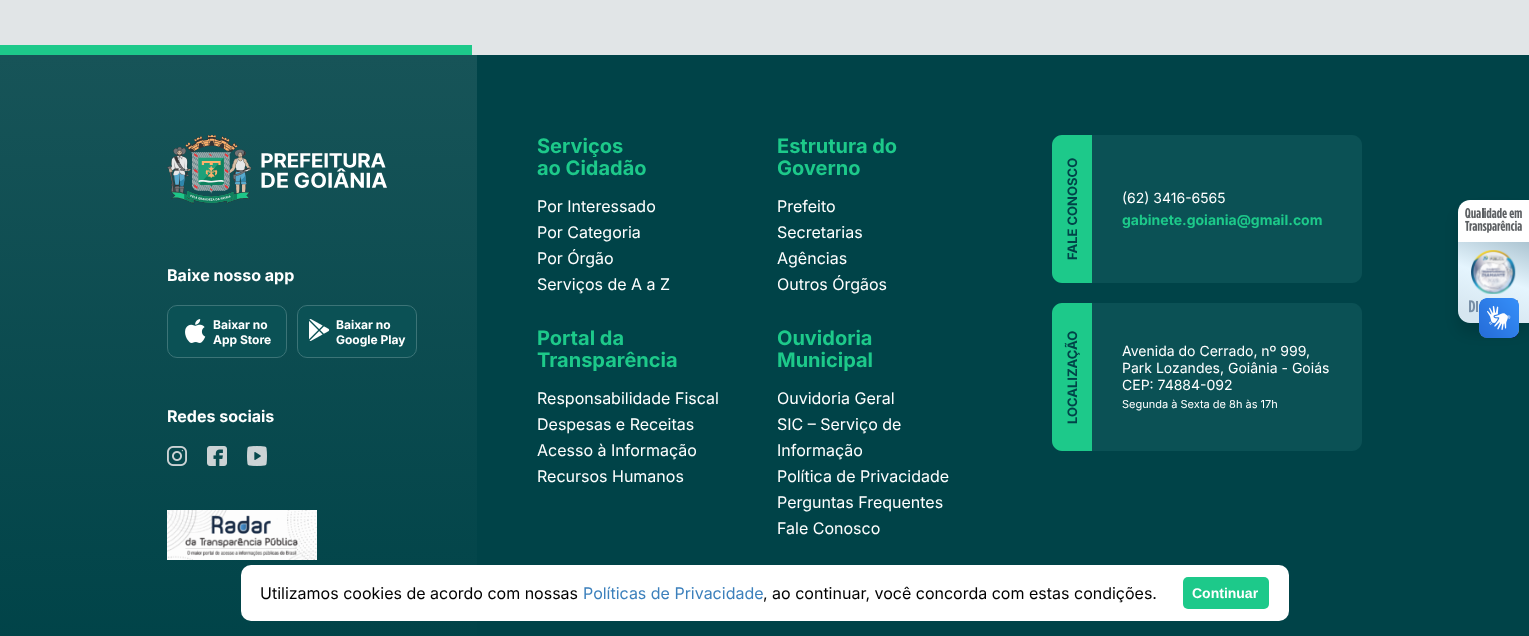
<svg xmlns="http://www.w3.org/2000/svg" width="1529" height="636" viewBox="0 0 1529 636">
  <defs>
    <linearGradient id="g1" gradientUnits="userSpaceOnUse" x1="83" y1="55" x2="84" y2="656"><stop offset="0" stop-color="#175458"/><stop offset="1" stop-color="#004348"/></linearGradient>
    <linearGradient id="g2" gradientUnits="userSpaceOnUse" x1="322" y1="55" x2="322" y2="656"><stop offset="0" stop-color="#175458"/><stop offset="1" stop-color="#004348"/></linearGradient>
    <filter id="blur1" x="-50%" y="-200%" width="200%" height="500%"><feGaussianBlur stdDeviation="7.5"/></filter>
    <linearGradient id="g3" gradientUnits="userSpaceOnUse" x1="1510" y1="235" x2="1477" y2="330"><stop offset="0" stop-color="#acc4d1"/><stop offset="0.45" stop-color="#e5f5fe"/><stop offset="0.87" stop-color="#d6e6f0"/></linearGradient>
  </defs>
  <rect width="100%" height="100%" fill="#e1e5e7"/>
  <rect x="477" y="55" width="1052" height="581" fill="#004348"/>
  <rect x="0" y="55" width="167" height="581" fill="url(#g1)"/>
  <rect x="167" y="55" width="310" height="581" fill="url(#g2)"/>
  <rect x="0" y="45" width="472" height="10" fill="#1dc98a"/>
  <image x="167" y="135" width="220" height="69" href="img1.png"/>
  <text x="167" y="281" font-family="Inter" font-size="16" font-weight="bold" fill="#ffffff">Baixe nosso app</text>
  <rect x="167.5" y="305.5" width="119" height="52" rx="9.5" fill="#0b5155" stroke="#3c7477"/>
  <image x="185" y="319" width="21" height="24" href="img2.png"/>
  <text x="213" y="329" font-family="Inter" font-size="12" font-weight="bold" fill="#ffffff">Baixar no</text>
  <text x="213" y="344" font-family="Inter" font-size="12" font-weight="bold" fill="#ffffff">App Store</text>
  <rect x="297.5" y="305.5" width="119" height="52" rx="9.5" fill="#0b5155" stroke="#3c7477"/>
  <image x="309" y="319" width="21" height="22" href="img3.png"/>
  <text x="336" y="329" font-family="Inter" font-size="12" font-weight="bold" fill="#ffffff">Baixar no</text>
  <text x="336" y="344" font-family="Inter" font-size="12" font-weight="bold" fill="#ffffff">Google Play</text>
  <text x="167" y="422" font-family="Inter" font-size="16" font-weight="bold" fill="#ffffff">Redes sociais</text>
  <image x="167" y="446" width="20" height="20" href="img4.png"/>
  <image x="207" y="446" width="20" height="20" href="img5.png"/>
  <image x="247" y="446" width="20" height="20" href="img6.png"/>
  <image x="167" y="510" width="150" height="50" href="img7.png"/>
  <text x="537" y="153" font-family="Inter" font-size="20" font-weight="bold" fill="#1dc98a">Serviços</text>
  <text x="537" y="175" font-family="Inter" font-size="20" font-weight="bold" fill="#1dc98a">ao Cidadão</text>
  <text x="537" y="212" font-family="Inter" font-size="16" fill="#ffffff">Por Interessado</text>
  <text x="537" y="238" font-family="Inter" font-size="16" fill="#ffffff">Por Categoria</text>
  <text x="537" y="264" font-family="Inter" font-size="16" fill="#ffffff">Por Órgão</text>
  <text x="537" y="290" font-family="Inter" font-size="16" fill="#ffffff">Serviços de A a Z</text>
  <text x="777" y="153" font-family="Inter" font-size="20" font-weight="bold" fill="#1dc98a">Estrutura do</text>
  <text x="777" y="175" font-family="Inter" font-size="20" font-weight="bold" fill="#1dc98a">Governo</text>
  <text x="777" y="212" font-family="Inter" font-size="16" fill="#ffffff">Prefeito</text>
  <text x="777" y="238" font-family="Inter" font-size="16" fill="#ffffff">Secretarias</text>
  <text x="777" y="264" font-family="Inter" font-size="16" fill="#ffffff">Agências</text>
  <text x="777" y="290" font-family="Inter" font-size="16" fill="#ffffff">Outros Órgãos</text>
  <text x="537" y="345" font-family="Inter" font-size="20" font-weight="bold" fill="#1dc98a">Portal da</text>
  <text x="537" y="367" font-family="Inter" font-size="20" font-weight="bold" fill="#1dc98a">Transparência</text>
  <text x="537" y="404" font-family="Inter" font-size="16" fill="#ffffff">Responsabilidade Fiscal</text>
  <text x="537" y="430" font-family="Inter" font-size="16" fill="#ffffff">Despesas e Receitas</text>
  <text x="537" y="456" font-family="Inter" font-size="16" fill="#ffffff">Acesso à Informação</text>
  <text x="537" y="482" font-family="Inter" font-size="16" fill="#ffffff">Recursos Humanos</text>
  <text x="777" y="345" font-family="Inter" font-size="20" font-weight="bold" fill="#1dc98a">Ouvidoria</text>
  <text x="777" y="367" font-family="Inter" font-size="20" font-weight="bold" fill="#1dc98a">Municipal</text>
  <text x="777" y="404" font-family="Inter" font-size="16" fill="#ffffff">Ouvidoria Geral</text>
  <text x="777" y="430" font-family="Inter" font-size="16" fill="#ffffff">SIC – Serviço de</text>
  <text x="777" y="456" font-family="Inter" font-size="16" fill="#ffffff">Informação</text>
  <text x="777" y="482" font-family="Inter" font-size="16" fill="#ffffff">Política de Privacidade</text>
  <text x="777" y="508" font-family="Inter" font-size="16" fill="#ffffff">Perguntas Frequentes</text>
  <text x="777" y="534" font-family="Inter" font-size="16" fill="#ffffff">Fale Conosco</text>
  <path d="M1064 135H1352C1357.5 135 1362 139.5 1362 145V273C1362 278.5 1357.5 283 1352 283H1064C1057.5 283 1052 277.5 1052 271V147C1052 140.5 1057.5 135 1064 135Z" fill="#0b5155"/>
  <path d="M1062 135H1092V283H1062C1056.5 283 1052 278.5 1052 273V145C1052 139.5 1056.5 135 1062 135Z" fill="#1dc98a"/>
  <text x="1077" y="260" transform="rotate(-90 1077 260)" font-family="Inter" font-size="13" font-weight="bold" fill="#004348">FALE CONOSCO</text>
  <text x="1122" y="203" font-family="Inter" font-size="14" fill="#ffffff">(62) 3416-6565</text>
  <text x="1122" y="225" font-family="Inter" font-size="14" font-weight="bold" fill="#1dc98a">gabinete.goiania@gmail.com</text>
  <path d="M1064 303H1352C1357.5 303 1362 307.5 1362 313V441C1362 446.5 1357.5 451 1352 451H1064C1057.5 451 1052 445.5 1052 439V315C1052 308.5 1057.5 303 1064 303Z" fill="#0b5155"/>
  <path d="M1062 303H1092V451H1062C1056.5 451 1052 446.5 1052 441V313C1052 307.5 1056.5 303 1062 303Z" fill="#1dc98a"/>
  <text x="1077" y="424" transform="rotate(-90 1077 424)" font-family="Inter" font-size="13" font-weight="bold" fill="#004348">LOCALIZAÇÃO</text>
  <text x="1122" y="356" font-family="Inter" font-size="14" fill="#ffffff">Avenida do Cerrado, nº 999,</text>
  <text x="1122" y="373" font-family="Inter" font-size="14" fill="#ffffff">Park Lozandes, Goiânia - Goiás</text>
  <text x="1122" y="390" font-family="Inter" font-size="14" fill="#ffffff">CEP: 74884-092</text>
  <text x="1122" y="408" font-family="Inter" font-size="11" fill="#ffffff">Segunda à Sexta de 8h às 17h</text>
  <rect x="1458" y="210" width="71" height="123" rx="12" fill="#000000" fill-opacity="0.15" filter="url(#blur1)"/>
  <path d="M1470 200H1529V242H1458V212C1458 205.5 1463.5 200 1470 200Z" fill="#ffffff"/>
  <image x="1465" y="208" width="57" height="25" href="img8.png"/>
  <path d="M1458 242H1529V323H1470C1463.5 323 1458 317.5 1458 311Z" fill="url(#g3)"/>
  <image x="1471" y="250" width="45" height="44" href="img9.png"/>
  <image x="1469" y="300" width="49" height="13" href="img10.png"/>
  <image x="1479" y="298" width="40" height="40" href="img11.png"/>
  <image x="1479" y="298" width="40" height="40" href="img12.png"/>
  <rect x="241" y="565" width="1048" height="56" rx="10" fill="#ffffff"/>
  <text x="260" y="599" font-family="Inter" font-size="16" fill="#000000">Utilizamos cookies de acordo com nossas</text>
  <text x="583" y="599" font-family="Inter" font-size="16" fill="#3c80bc">Políticas de Privacidade</text>
  <text x="763" y="599" font-family="Inter" font-size="16" fill="#000000">, ao continuar, você concorda com estas condições.</text>
  <rect x="1183" y="577" width="86" height="32" rx="5" fill="#1dc98a"/>
  <text x="1192" y="598" font-family="Liberation Sans" font-size="14" font-weight="bold" fill="#ffffff">Continuar</text>
</svg>
